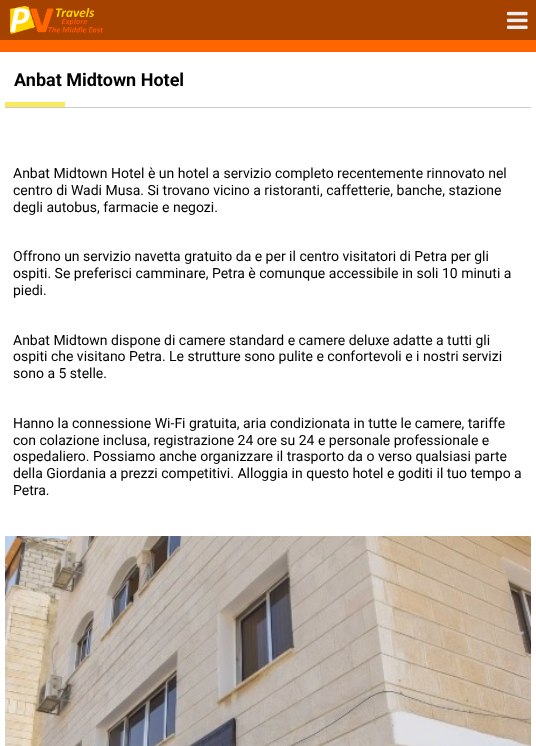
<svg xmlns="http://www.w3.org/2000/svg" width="536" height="746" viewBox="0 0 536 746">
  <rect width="100%" height="100%" fill="#ffffff"/>
  <rect x="0" y="0" width="536" height="40" fill="#a64200"/>
  <image x="10" y="6" width="93" height="28" href="img1.png"/>
  <image x="507" y="11" width="21" height="18" href="img2.png"/>
  <rect x="0" y="40" width="536" height="12" fill="#ff6600"/>
  <rect x="5" y="107" width="526" height="1" fill="#cccccc"/>
  <text x="14" y="86" font-family="Roboto" font-size="18" font-weight="bold" fill="#000000">Anbat Midtown Hotel</text>
  <rect x="5" y="102" width="60" height="5" fill="#f9ea5d"/>
  <text x="13" y="178" font-family="Roboto" font-size="14" fill="#000000">Anbat Midtown Hotel è un hotel a servizio completo recentemente rinnovato nel</text>
  <text x="13" y="195" font-family="Roboto" font-size="14" fill="#000000">centro di Wadi Musa. Si trovano vicino a ristoranti, caffetterie, banche, stazione</text>
  <text x="13" y="212" font-family="Roboto" font-size="14" fill="#000000">degli autobus, farmacie e negozi.</text>
  <text x="13" y="261" font-family="Roboto" font-size="14" fill="#000000">Offrono un servizio navetta gratuito da e per il centro visitatori di Petra per gli</text>
  <text x="13" y="278" font-family="Roboto" font-size="14" fill="#000000">ospiti. Se preferisci camminare, Petra è comunque accessibile in soli 10 minuti a</text>
  <text x="13" y="295" font-family="Roboto" font-size="14" fill="#000000">piedi.</text>
  <text x="13" y="345" font-family="Roboto" font-size="14" fill="#000000">Anbat Midtown dispone di camere standard e camere deluxe adatte a tutti gli</text>
  <text x="13" y="361" font-family="Roboto" font-size="14" fill="#000000">ospiti che visitano Petra. Le strutture sono pulite e confortevoli e i nostri servizi</text>
  <text x="13" y="378" font-family="Roboto" font-size="14" fill="#000000">sono a 5 stelle.</text>
  <text x="13" y="428" font-family="Roboto" font-size="14" fill="#000000">Hanno la connessione Wi-Fi gratuita, aria condizionata in tutte le camere, tariffe</text>
  <text x="13" y="445" font-family="Roboto" font-size="14" fill="#000000">con colazione inclusa, registrazione 24 ore su 24 e personale professionale e</text>
  <text x="13" y="461" font-family="Roboto" font-size="14" fill="#000000">ospedaliero. Possiamo anche organizzare il trasporto da o verso qualsiasi parte</text>
  <text x="13" y="478" font-family="Roboto" font-size="14" fill="#000000">della Giordania a prezzi competitivi. Alloggia in questo hotel e goditi il tuo tempo a</text>
  <text x="13" y="495" font-family="Roboto" font-size="14" fill="#000000">Petra.</text>
  <image x="5" y="536" width="526" height="210" href="img3.png"/>
</svg>
